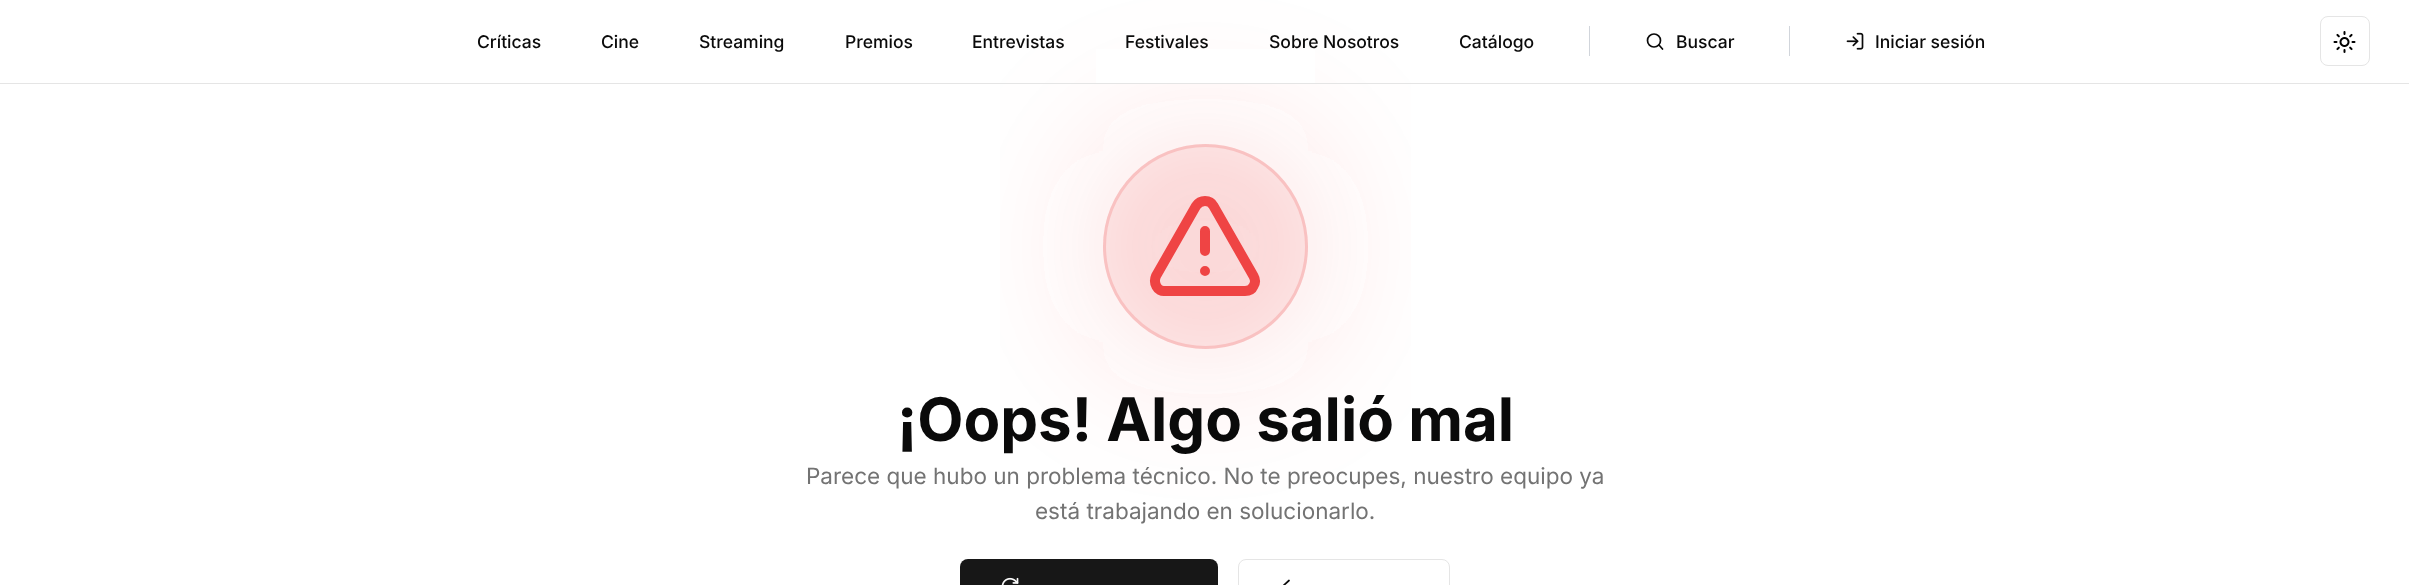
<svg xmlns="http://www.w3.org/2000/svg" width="2409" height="585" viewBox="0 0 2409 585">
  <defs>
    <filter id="blur1" x="-50%" y="-200%" width="200%" height="500%"><feGaussianBlur stdDeviation="80"/></filter>
  </defs>
  <rect width="100%" height="100%" fill="#ffffff"/>
  <rect x="960" y="559" width="258" height="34" rx="8" fill="#171717"/>
  <image x="1001" y="577" width="18" height="8" href="img3.png"/>
  <rect x="1238.5" y="559.5" width="211" height="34" rx="7.5" fill="none" stroke="#e5e5e5"/>
  <path d="M1289 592L1283 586L1289 580.5" fill="none" stroke="#0a0a0a" stroke-width="1.7" stroke-linecap="round" stroke-linejoin="round"/>
  <rect x="1103" y="144" width="205" height="205" rx="102.5" fill="#ef4444" fill-opacity="0.2" filter="url(#blur1)"/>
  <rect x="1096" y="49" width="219" height="34" fill="#ffffff"/>
  <rect x="0" y="83" width="2409" height="1" fill="#e5e5e5"/>
  <text x="477" y="48" font-family="Inter" font-size="17.5" font-weight="500" fill="#0a0a0a">Críticas</text>
  <text x="601" y="48" font-family="Inter" font-size="17.5" font-weight="500" fill="#0a0a0a">Cine</text>
  <text x="699" y="48" font-family="Inter" font-size="17.5" font-weight="500" fill="#0a0a0a">Streaming</text>
  <text x="845" y="48" font-family="Inter" font-size="17.5" font-weight="500" fill="#0a0a0a">Premios</text>
  <text x="972" y="48" font-family="Inter" font-size="17.5" font-weight="500" fill="#0a0a0a">Entrevistas</text>
  <text x="1125" y="48" font-family="Inter" font-size="17.5" font-weight="500" fill="#0a0a0a">Festivales</text>
  <text x="1269" y="48" font-family="Inter" font-size="17.5" font-weight="500" fill="#0a0a0a">Sobre Nosotros</text>
  <text x="1459" y="48" font-family="Inter" font-size="17.5" font-weight="500" fill="#0a0a0a">Catálogo</text>
  <rect x="1589" y="26" width="1" height="30" fill="#d1d5db"/>
  <circle cx="1654" cy="40.5" r="6.5" fill="none" stroke="#0a0a0a" stroke-width="1.7"/>
  <path d="M1662.5 49L1659 45" fill="none" stroke="#0a0a0a" stroke-width="1.7" stroke-linecap="round" stroke-linejoin="round"/>
  <text x="1676" y="48" font-family="Inter" font-size="17.5" font-weight="500" fill="#0a0a0a">Buscar</text>
  <rect x="1789" y="26" width="1" height="30" fill="#d1d5db"/>
  <image x="1846" y="32" width="18" height="18" href="img1.png"/>
  <text x="1875" y="48" font-family="Inter" font-size="17.5" font-weight="500" fill="#0a0a0a">Iniciar sesión</text>
  <rect x="2320.5" y="16.5" width="49" height="49" rx="7.5" fill="none" stroke="#e5e5e5"/>
  <image x="2333" y="31" width="23" height="22" href="img2.png"/>
  <circle cx="1205.5" cy="246.5" r="102.5" fill="#ef4444" fill-opacity="0.1"/>
  <circle cx="1205.5" cy="246.5" r="101" fill="none" stroke="#ef4444" stroke-opacity="0.2" stroke-width="3"/>
  <path d="M1253.5 276L1213.5 206C1212 203 1208.5 201 1205 201C1201.5 201 1198 203 1196 206L1156 276C1154.5 279.5 1154.5 283 1156.5 286.5C1158 289.5 1161.5 291.5 1165 291H1245C1248.5 291 1252 289.5 1253.5 286C1255.5 283 1255.5 279.5 1253.5 276" fill="none" stroke="#ef4444" stroke-width="10" stroke-linecap="round" stroke-linejoin="round"/>
  <path d="M1205 231V251M1205 271H1205" fill="none" stroke="#ef4444" stroke-width="10" stroke-linecap="round" stroke-linejoin="round"/>
  <text x="897" y="441" font-family="Inter" font-size="60" font-weight="bold" fill="#0a0a0a">¡Oops! Algo salió mal</text>
  <text x="806" y="484" font-family="Inter" font-size="22.5" fill="#737373">Parece que hubo un problema técnico. No te preocupes, nuestro equipo ya</text>
  <text x="1035" y="519" font-family="Inter" font-size="22.5" fill="#737373">está trabajando en solucionarlo.</text>
</svg>
